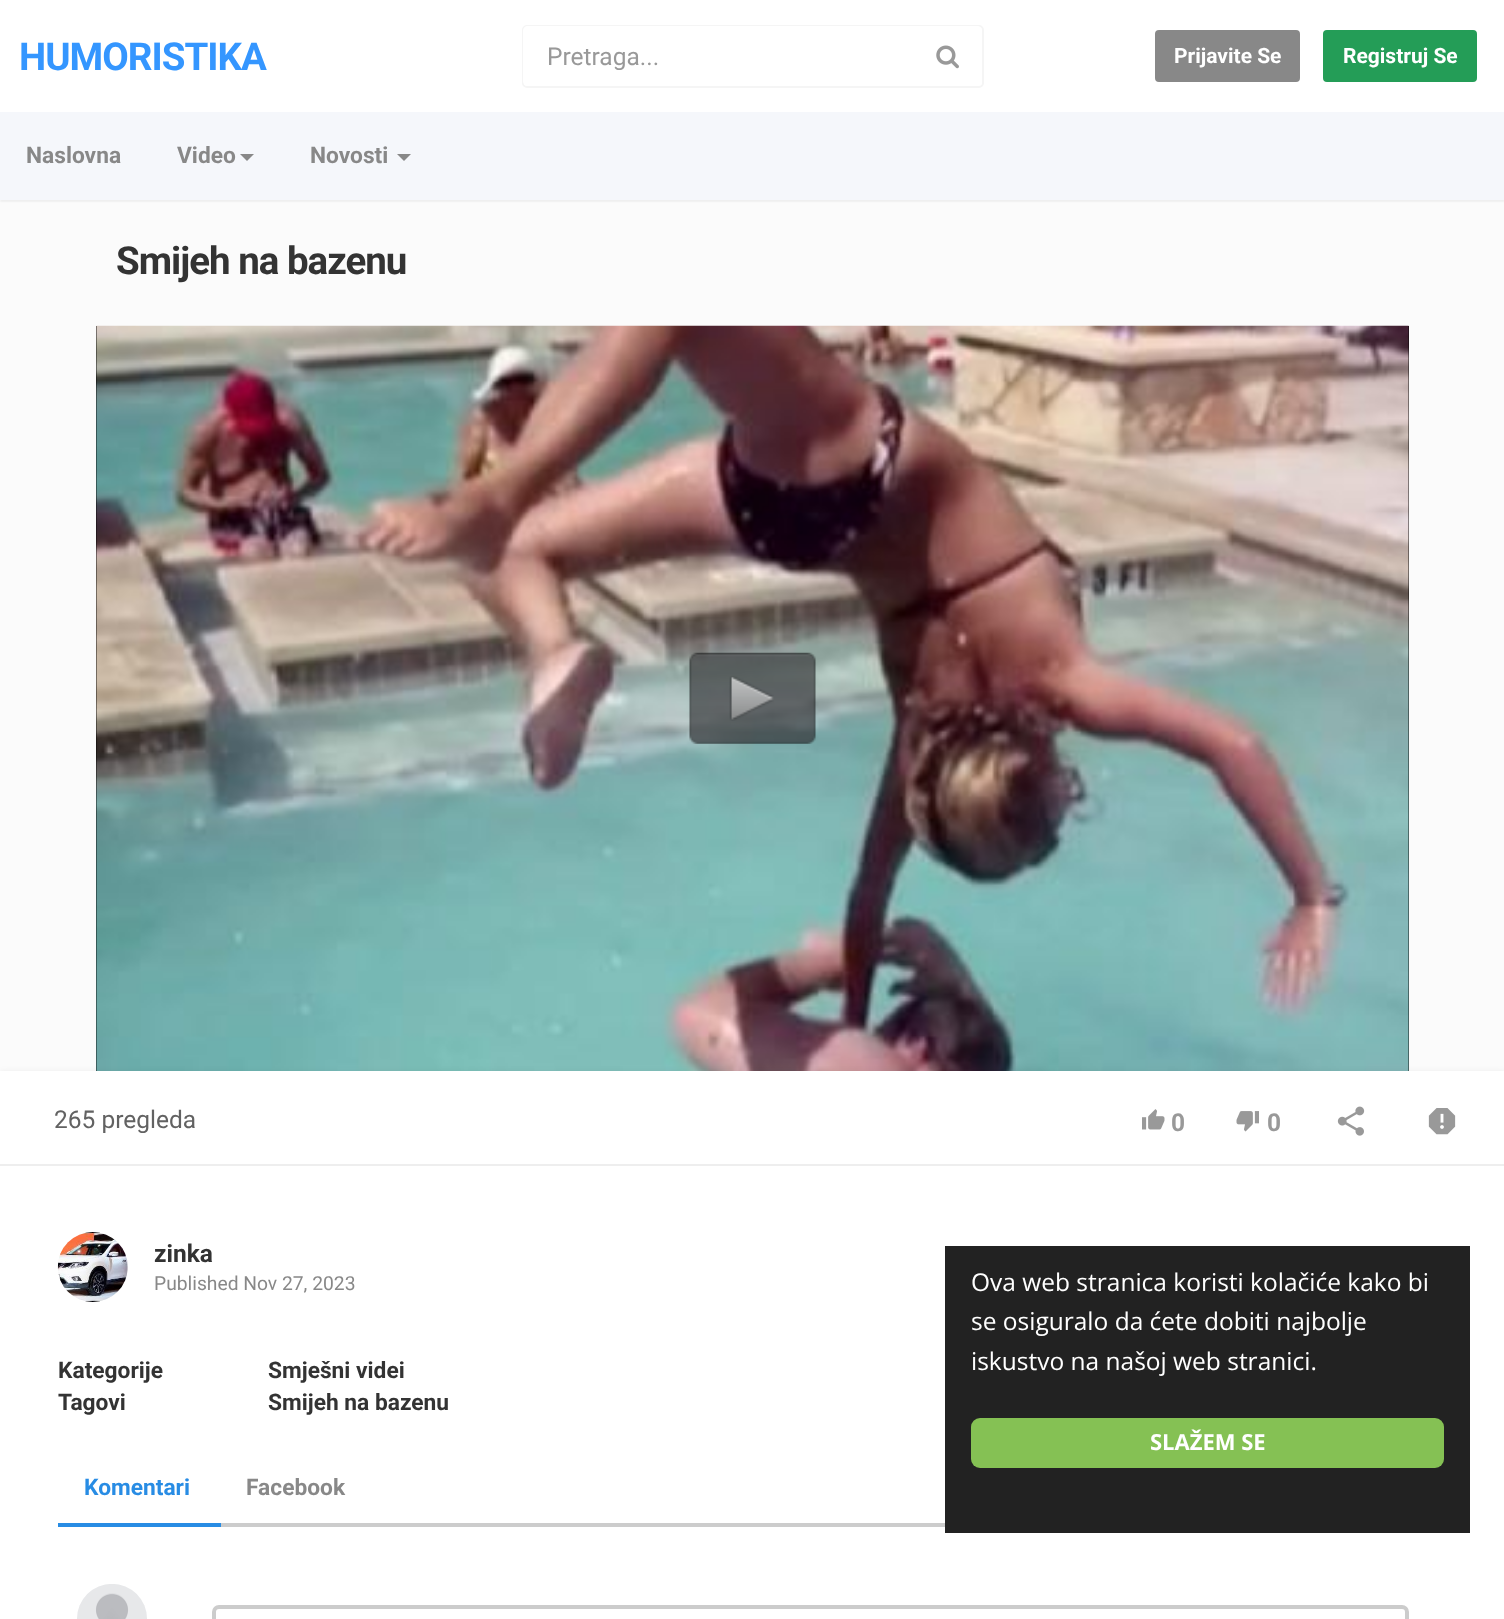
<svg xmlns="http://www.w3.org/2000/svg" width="1504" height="1619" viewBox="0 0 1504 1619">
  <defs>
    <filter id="blur1" x="-50%" y="-200%" width="200%" height="500%"><feGaussianBlur stdDeviation="1"/></filter>
    <filter id="blur2" x="-50%" y="-200%" width="200%" height="500%"><feGaussianBlur stdDeviation="3.5"/></filter>
  </defs>
  <rect width="100%" height="100%" fill="#fbfbfb"/>
  <rect x="0" y="0" width="1504" height="112" fill="#ffffff"/>
  <text x="19" y="70" font-family="Roboto" font-size="38.5" font-weight="bold" letter-spacing="-1" fill="#3496ff">HUMORISTIKA</text>
  <rect x="523" y="26" width="460" height="61" rx="4" fill="none" stroke="#f5f5f5" stroke-width="2"/>
  <path d="M528 26H917V86H528C525 86 523 84 523 81V31C523 28 525 26 528 26Z" fill="#ffffff"/>
  <text x="547" y="65" font-family="Roboto" font-size="24.5" fill="#999999">Pretraga...</text>
  <path d="M915 26H977C980 26 982 28 982 31V81C982 84 980 86 977 86H915Z" fill="#ffffff"/>
  <image x="936" y="45" width="23" height="24" href="img1.png"/>
  <rect x="1156" y="31" width="143" height="50" rx="3" fill="#888888" stroke="#888888" stroke-width="2"/>
  <text x="1174" y="63" font-family="Roboto" font-size="21" font-weight="bold" fill="#ffffff">Prijavite Se</text>
  <rect x="1324" y="31" width="152" height="50" rx="3" fill="#249d57" stroke="#249d57" stroke-width="2"/>
  <text x="1343" y="63" font-family="Roboto" font-size="21" font-weight="bold" fill="#ffffff">Registruj Se</text>
  <rect x="0" y="114" width="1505" height="87" fill="#383838" fill-opacity="0.1" filter="url(#blur1)"/>
  <rect x="0" y="112" width="1504" height="88" fill="#f5f7fb"/>
  <text x="26" y="163" font-family="Roboto" font-size="22.75" font-weight="bold" fill="#888888">Naslovna</text>
  <text x="177" y="163" font-family="Roboto" font-size="22.75" font-weight="bold" fill="#888888">Video</text>
  <path d="M240 154H254L247 161Z" fill="#888888"/>
  <text x="310" y="163" font-family="Roboto" font-size="22.75" font-weight="bold" fill="#888888">Novosti</text>
  <path d="M397 154H411L404 161Z" fill="#888888"/>
  <text x="116" y="274" font-family="Roboto" font-size="38.5" font-weight="bold" letter-spacing="-1" fill="#333333">Smijeh na bazenu</text>
  <rect x="96" y="326" width="1313" height="745" fill="#000000"/>
  <image x="96" y="325" width="1313" height="746" href="img2.png"/>
  <image x="689" y="652" width="127" height="92" href="img3.png"/>
  <image x="729" y="676" width="45" height="45" href="img4.png"/>
  <rect x="0" y="1073" width="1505" height="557" fill="#000000" fill-opacity="0.1" filter="url(#blur2)"/>
  <rect x="0" y="1071" width="1504" height="548" fill="#ffffff"/>
  <rect x="0" y="1164" width="1504" height="2" fill="#eeeeee"/>
  <text x="54" y="1128" font-family="Roboto" font-size="24.5" fill="#626262">265 pregleda</text>
  <image x="1142" y="1109" width="23" height="21" href="img5.png"/>
  <text x="1171" y="1131" font-family="Roboto" font-size="24.5" font-weight="bold" fill="#999999">0</text>
  <image x="1236" y="1111" width="23" height="21" href="img6.png"/>
  <text x="1267" y="1131" font-family="Roboto" font-size="24.5" font-weight="bold" fill="#999999">0</text>
  <image x="1337" y="1106" width="28" height="30" href="img7.png"/>
  <image x="1428" y="1108" width="28" height="27" href="img8.png"/>
  <circle cx="93" cy="1267" r="35" fill="#f8f8f8"/>
  <image x="57" y="1232" width="71" height="70" href="img9.png"/>
  <text x="154" y="1262" font-family="Roboto" font-size="24.5" font-weight="bold" fill="#333333">zinka</text>
  <text x="154" y="1290" font-family="Roboto" font-size="19.25" fill="#888888">Published Nov 27, 2023</text>
  <text x="58" y="1378" font-family="Roboto" font-size="22.75" font-weight="bold" fill="#333333">Kategorije</text>
  <text x="268" y="1378" font-family="Roboto" font-size="22.75" font-weight="bold" fill="#333333">Smješni videi</text>
  <text x="58" y="1410" font-family="Roboto" font-size="22.75" font-weight="bold" fill="#333333">Tagovi</text>
  <text x="268" y="1410" font-family="Roboto" font-size="22.75" font-weight="bold" fill="#333333">Smijeh na bazenu</text>
  <rect x="221" y="1523" width="724" height="4" fill="#cccccc"/>
  <rect x="58" y="1523" width="163" height="4" fill="#288ce4"/>
  <text x="84" y="1495" font-family="Roboto" font-size="22.75" font-weight="bold" fill="#288ce4">Komentari</text>
  <text x="246" y="1495" font-family="Roboto" font-size="22.75" font-weight="bold" fill="#888888">Facebook</text>
  <image x="77" y="1584" width="70" height="35" href="img10.png"/>
  <rect x="214" y="1607" width="1193" height="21" rx="5" fill="none" stroke="#cccccc" stroke-width="4"/>
  <rect x="945" y="1246" width="525" height="287" fill="#222222"/>
  <text x="971" y="1291" font-family="Open Sans" font-size="24.5" fill="#ffffff">Ova web stranica koristi kolačiće kako bi</text>
  <text x="971" y="1330" font-family="Open Sans" font-size="24.5" fill="#ffffff">se osiguralo da ćete dobiti najbolje</text>
  <text x="971" y="1370" font-family="Open Sans" font-size="24.5" fill="#ffffff">iskustvo na našoj web stranici.</text>
  <rect x="971" y="1418" width="473" height="50" rx="9" fill="#85c154"/>
  <text x="1150" y="1450" font-family="Open Sans" font-size="22" font-weight="bold" fill="#ffffff">SLAŽEM SE</text>
</svg>
